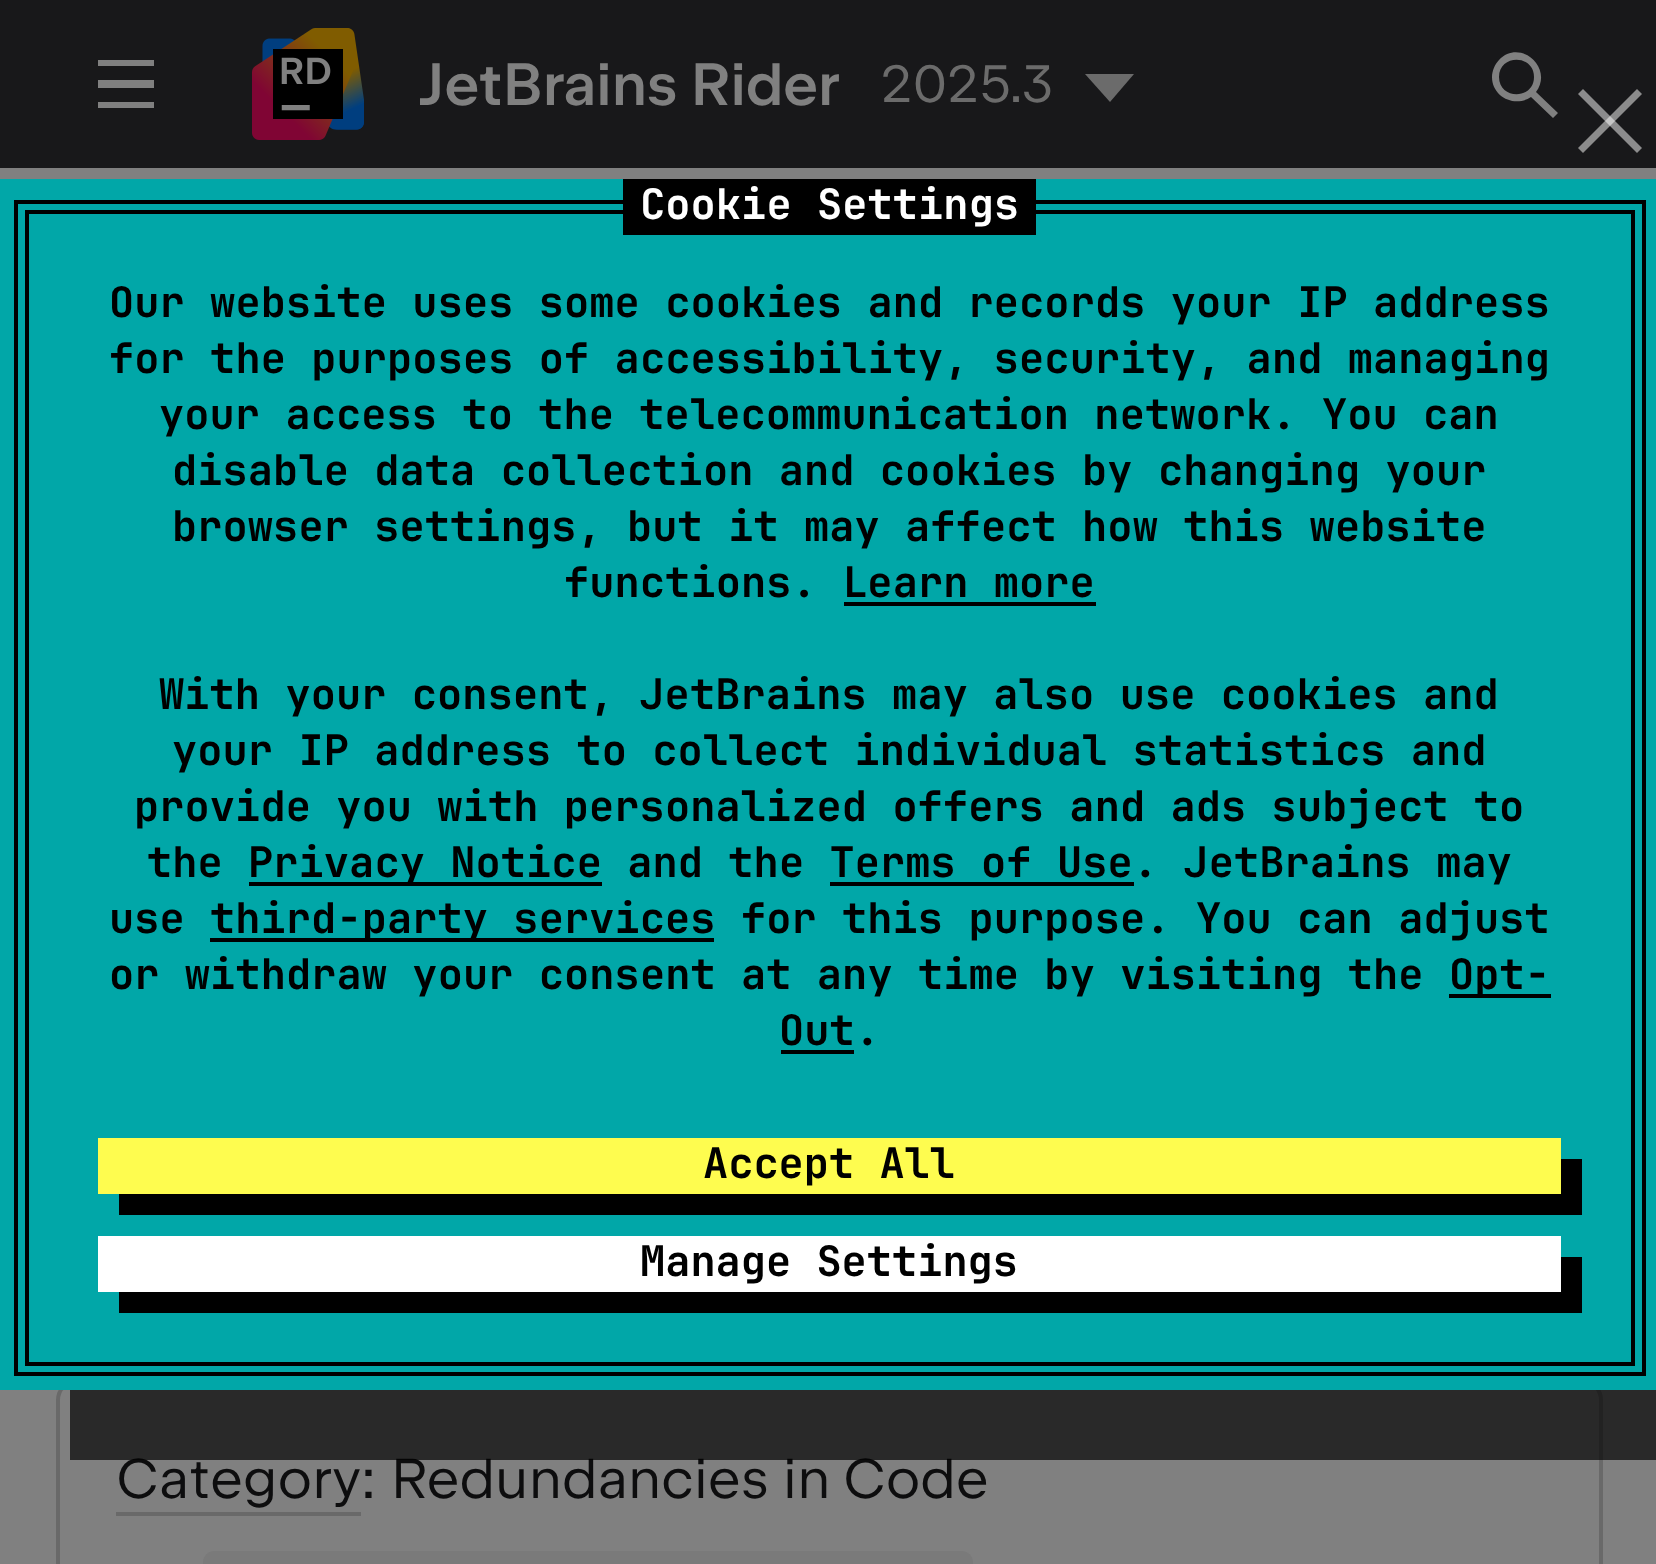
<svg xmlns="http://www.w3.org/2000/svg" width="1656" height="1564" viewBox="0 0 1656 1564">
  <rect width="100%" height="100%" fill="#808080"/>
  <rect x="0" y="0" width="1656" height="168" fill="#18181a"/>
  <path d="M98 60H154V66H98ZM98 80H154V88H98ZM98 102H154V108H98Z" fill="#808080"/>
  <image x="252" y="28" width="112" height="112" href="img1.png"/>
  <text x="420" y="105" font-family="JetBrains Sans" font-size="59.5" font-weight="500" letter-spacing="-0.3" fill="#808080">JetBrains Rider</text>
  <text x="881" y="102" font-family="JetBrains Sans" font-size="52.5" letter-spacing="0.08" fill="#6b6b6b">2025.3</text>
  <path d="M1110 102L1085 74H1134Z" fill="#6b6b6b"/>
  <path d="M1492 77C1492 97 1515 108 1531 97L1553 118L1558 113L1536 92C1554 68 1520 38 1499 60C1495 64 1492 71 1492 77ZM1499 77C1499 54 1534 54 1534 77C1534 100 1499 100 1499 77Z" fill="#808080"/>
  <rect x="58" y="1381" width="1543" height="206" rx="19" fill="none" stroke="#696969" stroke-width="4"/>
  <text x="116" y="1498" font-family="JetBrains Sans" font-size="56" letter-spacing="0.08" fill="#0d0d0e">Category: Redundancies in Code</text>
  <rect x="116" y="1512" width="245" height="4" fill="#696969"/>
  <path d="M214 1551H962C968 1551 973 1556 973 1562V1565H203V1562C203 1556 208 1551 214 1551Z" fill="#7a7a7a"/>
  <path d="M70 1390V1460H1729V249H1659V1390Z" fill="#000000" fill-opacity="0.68"/>
  <rect x="0" y="179" width="1656" height="1211" fill="#01a7a8"/>
  <path d="M1578 148L1637 89L1642 94L1583 153Z" fill="#8c8c8c"/>
  <path d="M1583 89L1642 148L1637 153L1578 94Z" fill="#ffffff" fill-opacity="0.5"/>
  <rect x="25" y="210" width="1610" height="4" fill="#000000"/>
  <rect x="1631" y="210" width="4" height="1155" fill="#000000"/>
  <rect x="25" y="210" width="4" height="928" fill="#000000"/>
  <rect x="14" y="200" width="1631" height="4" fill="#000000"/>
  <rect x="623" y="179" width="413" height="56" fill="#000000"/>
  <text x="640" y="219" font-family="JetBrains Mono" font-size="42" font-weight="bold" letter-spacing="0.08" fill="#ffffff">Cookie Settings</text>
  <rect x="1642" y="200" width="4" height="1176" fill="#000000"/>
  <rect x="14" y="200" width="4" height="934" fill="#000000"/>
  <text x="109" y="317" font-family="JetBrains Mono" font-size="42" font-weight="bold" letter-spacing="0.08" fill="#000000">Our website uses some cookies and records your IP address</text>
  <text x="109" y="373" font-family="JetBrains Mono" font-size="42" font-weight="bold" letter-spacing="0.08" fill="#000000">for the purposes of accessibility, security, and managing</text>
  <text x="159" y="429" font-family="JetBrains Mono" font-size="42" font-weight="bold" letter-spacing="0.08" fill="#000000">your access to the telecommunication network. You can</text>
  <text x="172" y="485" font-family="JetBrains Mono" font-size="42" font-weight="bold" letter-spacing="0.08" fill="#000000">disable data collection and cookies by changing your</text>
  <text x="172" y="541" font-family="JetBrains Mono" font-size="42" font-weight="bold" letter-spacing="0.08" fill="#000000">browser settings, but it may affect how this website</text>
  <text x="564" y="597" font-family="JetBrains Mono" font-size="42" font-weight="bold" letter-spacing="0.08" fill="#000000">functions. Learn more</text>
  <rect x="844" y="602" width="252" height="4" fill="#000000"/>
  <text x="159" y="709" font-family="JetBrains Mono" font-size="42" font-weight="bold" letter-spacing="0.08" fill="#000000">With your consent, JetBrains may also use cookies and</text>
  <text x="172" y="765" font-family="JetBrains Mono" font-size="42" font-weight="bold" letter-spacing="0.08" fill="#000000">your IP address to collect individual statistics and</text>
  <text x="134" y="821" font-family="JetBrains Mono" font-size="42" font-weight="bold" letter-spacing="0.08" fill="#000000">provide you with personalized offers and ads subject to</text>
  <text x="147" y="877" font-family="JetBrains Mono" font-size="42" font-weight="bold" letter-spacing="0.08" fill="#000000">the</text>
  <rect x="249" y="882" width="353" height="4" fill="#000000"/>
  <text x="248" y="877" font-family="JetBrains Mono" font-size="42" font-weight="bold" letter-spacing="0.08" fill="#000000">Privacy Notice and the Terms of Use. JetBrains may</text>
  <rect x="830" y="882" width="304" height="4" fill="#000000"/>
  <text x="109" y="933" font-family="JetBrains Mono" font-size="42" font-weight="bold" letter-spacing="0.08" fill="#000000">use</text>
  <rect x="210" y="938" width="504" height="4" fill="#000000"/>
  <text x="210" y="933" font-family="JetBrains Mono" font-size="42" font-weight="bold" letter-spacing="0.08" fill="#000000">third-party services for this purpose. You can adjust</text>
  <text x="109" y="989" font-family="JetBrains Mono" font-size="42" font-weight="bold" letter-spacing="0.08" fill="#000000">or withdraw your consent at any time by visiting the</text>
  <rect x="1449" y="994" width="102" height="4" fill="#000000"/>
  <text x="1449" y="989" font-family="JetBrains Mono" font-size="42" font-weight="bold" letter-spacing="0.08" fill="#000000">Opt-</text>
  <text x="779" y="1045" font-family="JetBrains Mono" font-size="42" font-weight="bold" letter-spacing="0.08" fill="#000000">Out.</text>
  <rect x="781" y="1050" width="73" height="4" fill="#000000"/>
  <rect x="25" y="1362" width="1610" height="4" fill="#000000"/>
  <rect x="25" y="1138" width="4" height="227" fill="#000000"/>
  <rect x="14" y="1372" width="1631" height="4" fill="#000000"/>
  <rect x="14" y="1134" width="4" height="242" fill="#000000"/>
  <path d="M119 1194V1215H1582V1159H1561V1194Z" fill="#000000"/>
  <rect x="98" y="1138" width="1463" height="56" fill="#fefc4f"/>
  <text x="703" y="1178" font-family="JetBrains Mono" font-size="42" font-weight="bold" fill="#000000">Accept All</text>
  <path d="M119 1292V1313H1582V1257H1561V1292Z" fill="#000000"/>
  <rect x="98" y="1236" width="1463" height="56" fill="#ffffff"/>
  <text x="640" y="1276" font-family="JetBrains Mono" font-size="42" font-weight="bold" fill="#000000">Manage Settings</text>
</svg>
